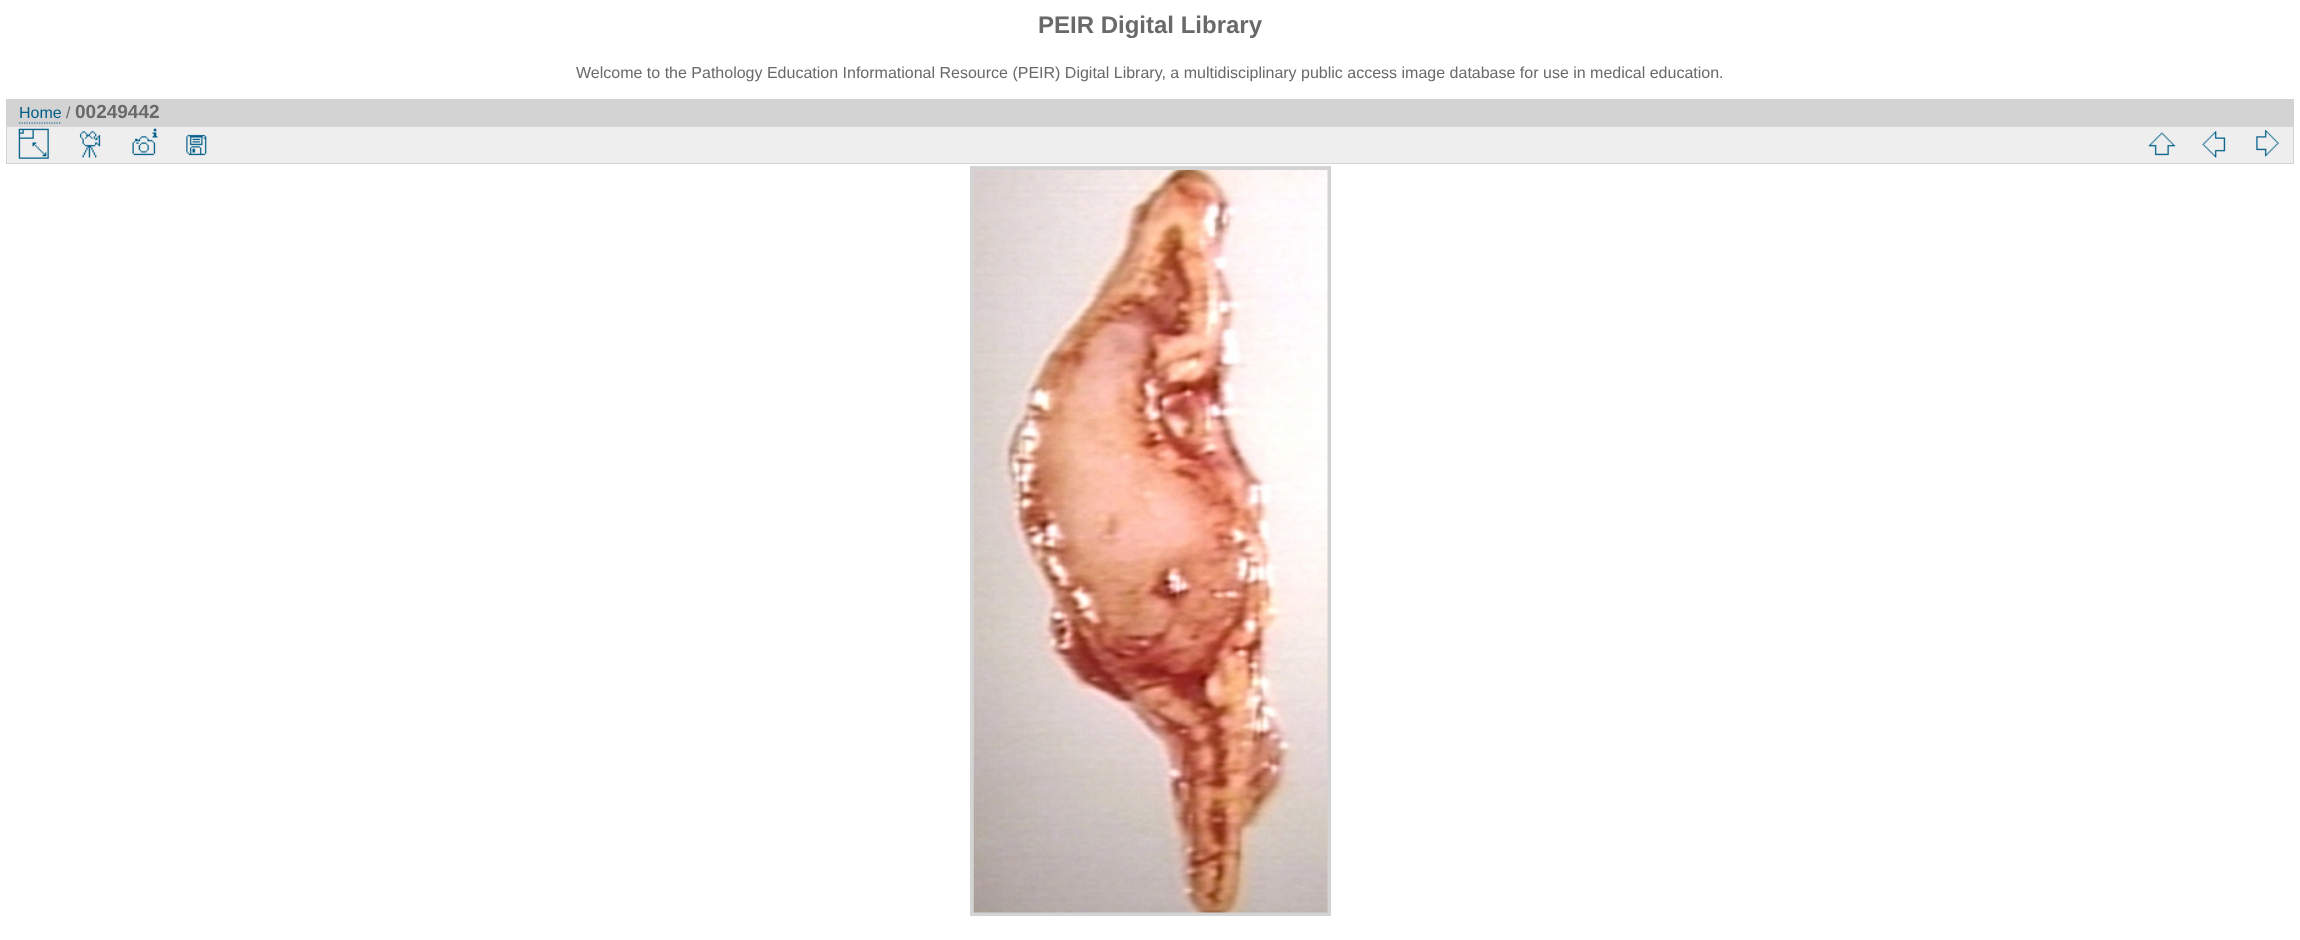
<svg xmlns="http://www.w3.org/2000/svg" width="2300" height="940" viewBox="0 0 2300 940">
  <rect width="100%" height="100%" fill="#ffffff"/>
  <text x="1038" y="33" font-family="Liberation Sans" font-size="24" font-weight="bold" fill="#696969">PEIR Digital Library</text>
  <text x="576" y="78" font-family="Liberation Sans" font-size="16" fill="#696969">Welcome to the Pathology Education Informational Resource (PEIR) Digital Library, a multidisciplinary public access image database for use in medical education.</text>
  <rect x="6" y="99" width="2288" height="27" fill="#d3d3d3"/>
  <text x="19" y="118" font-family="Liberation Sans" font-size="16" fill="#005e89">Home</text>
  <path d="M19 123H61" fill="none" stroke="#005e89" stroke-width="1.2" stroke-dasharray="1.25 1.25"/>
  <text x="66" y="118" font-family="Liberation Sans" font-size="16" fill="#696969">/</text>
  <text x="75" y="118" font-family="Liberation Sans" font-size="19" font-weight="bold" fill="#696969">00249442</text>
  <rect x="6.5" y="126.5" width="2287" height="37" fill="#eeeeee" stroke="#d3d3d3"/>
  <image x="18" y="128" width="31" height="31" href="img1.png"/>
  <image x="79" y="131" width="22" height="27" href="img2.png"/>
  <image x="132" y="128" width="26" height="28" href="img3.png"/>
  <image x="186" y="134" width="21" height="22" href="img4.png"/>
  <image x="2148" y="132" width="28" height="24" href="img5.png"/>
  <image x="2202" y="131" width="24" height="27" href="img6.png"/>
  <image x="2256" y="129" width="23" height="28" href="img7.png"/>
  <rect x="972" y="168" width="357" height="746" fill="none" stroke="#d3d3d3" stroke-width="4"/>
  <image x="973" y="170" width="355" height="743" href="img8.png"/>
</svg>
